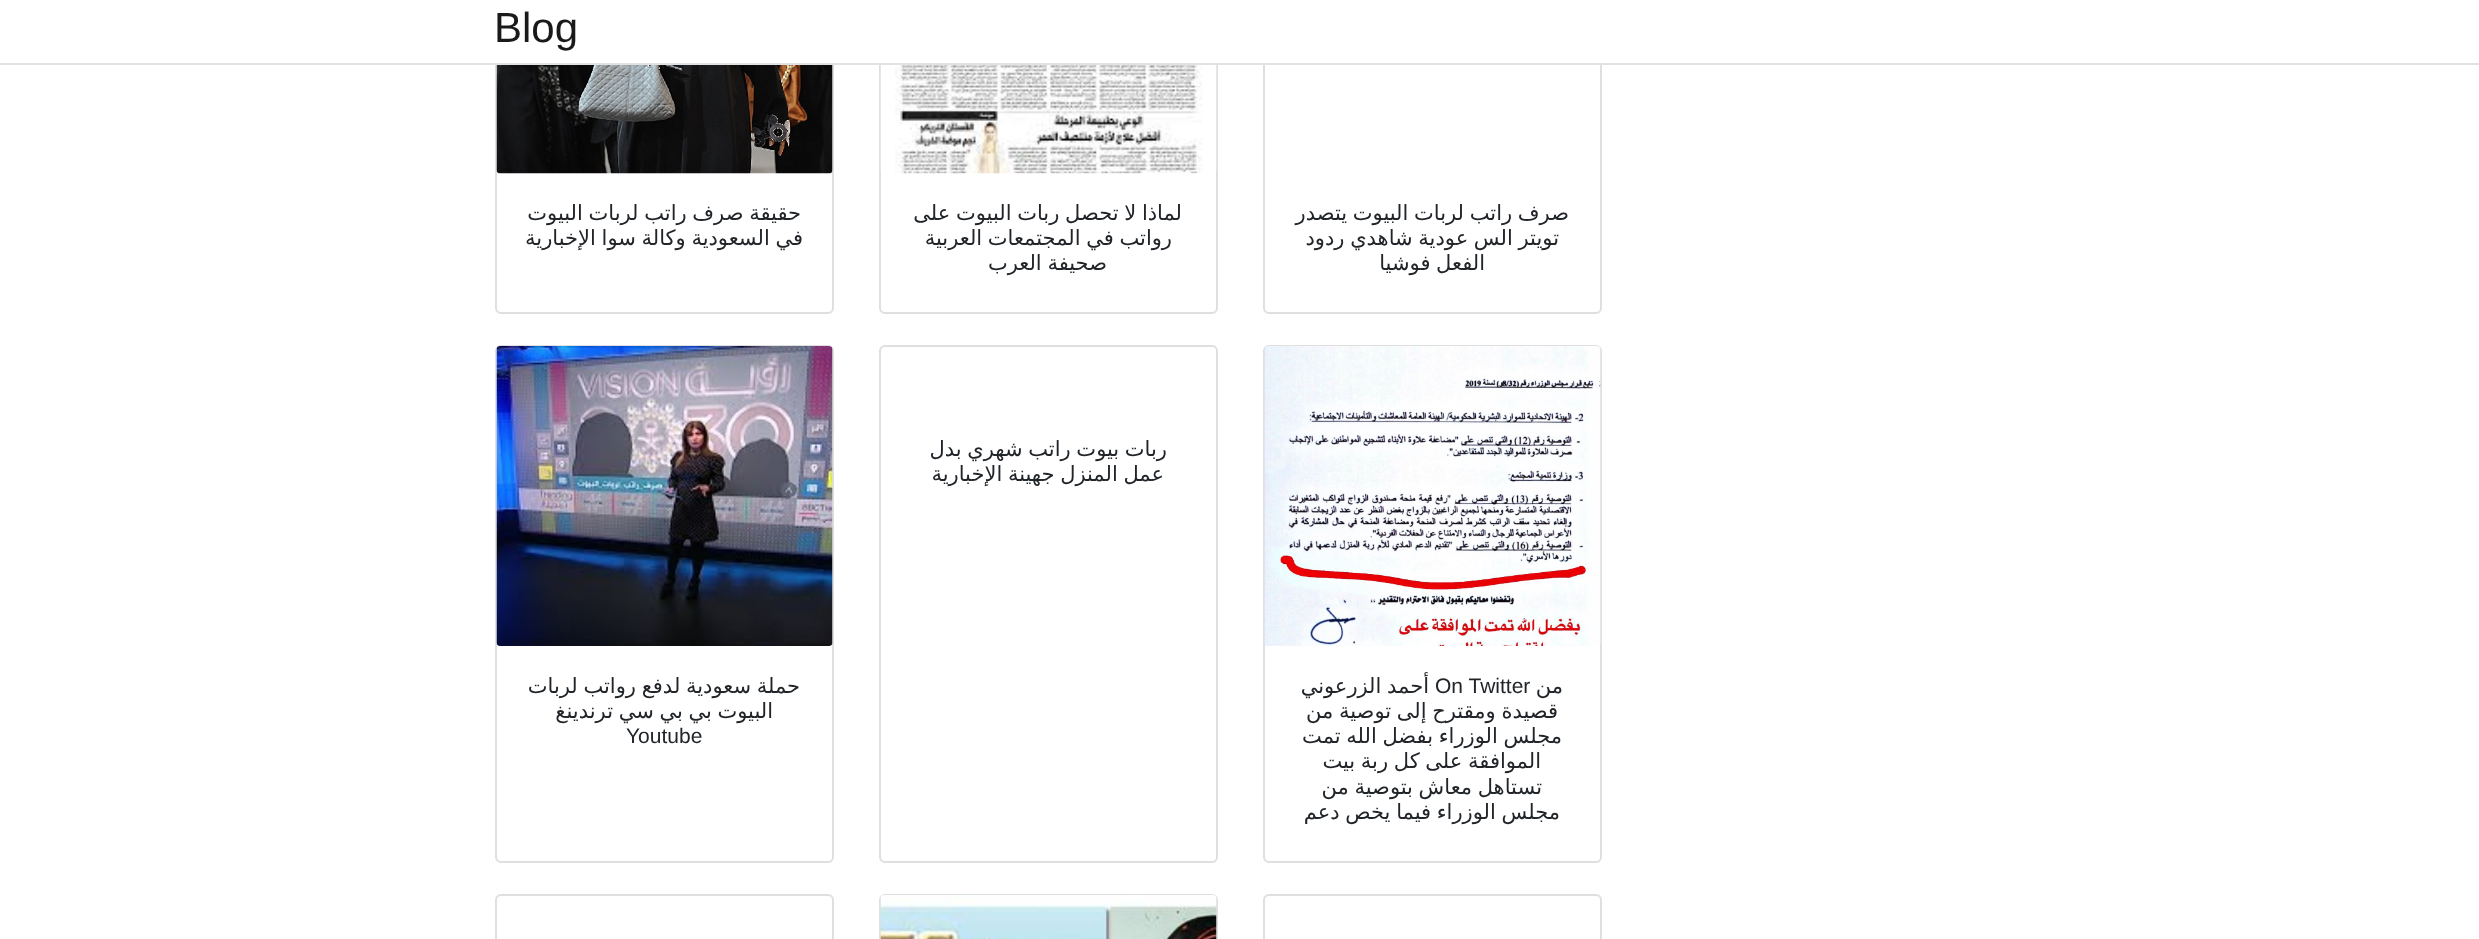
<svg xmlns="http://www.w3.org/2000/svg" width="2479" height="939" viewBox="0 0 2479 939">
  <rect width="100%" height="100%" fill="#ffffff"/>
  <rect x="1264" y="-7" width="337" height="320" rx="5" fill="none" stroke="#dfdfdf" stroke-width="2"/>
  <rect x="880" y="-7" width="337" height="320" rx="5" fill="none" stroke="#dfdfdf" stroke-width="2"/>
  <rect x="496" y="-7" width="337" height="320" rx="5" fill="none" stroke="#dfdfdf" stroke-width="2"/>
  <rect x="495" y="0" width="1107" height="63" fill="#ffffff"/>
  <rect x="0" y="63" width="2479" height="2" fill="#e1e2e3"/>
  <text x="494" y="42" font-family="Liberation Sans" font-size="42" fill="#1a1a1a">Blog</text>
  <text x="1569" y="220" word-spacing="-1" font-family="DejaVu Sans" font-size="21" direction="rtl" fill="#212529">صرف راتب لربات البيوت يتصدر</text>
  <text x="1559" y="245" word-spacing="-1" font-family="DejaVu Sans" font-size="21" direction="rtl" fill="#212529">تويتر الس عودية شاهدي ردود</text>
  <text x="1485" y="270" word-spacing="-1" font-family="DejaVu Sans" font-size="21" direction="rtl" fill="#212529">الفعل فوشيا</text>
  <image x="880" y="65" width="337" height="109" href="img1.png"/>
  <text x="1182" y="220" word-spacing="-1" font-family="DejaVu Sans" font-size="21" direction="rtl" fill="#212529">لماذا لا تحصل ربات البيوت على</text>
  <text x="1172" y="245" word-spacing="-1" font-family="DejaVu Sans" font-size="21" direction="rtl" fill="#212529">رواتب في المجتمعات العربية</text>
  <text x="1107" y="270" word-spacing="-1" font-family="DejaVu Sans" font-size="21" direction="rtl" fill="#212529">صحيفة العرب</text>
  <image x="496" y="65" width="337" height="109" href="img2.png"/>
  <text x="801" y="220" word-spacing="-1" font-family="DejaVu Sans" font-size="21" direction="rtl" fill="#212529">حقيقة صرف راتب لربات البيوت</text>
  <text x="803" y="245" word-spacing="-1" font-family="DejaVu Sans" font-size="21" direction="rtl" fill="#212529">في السعودية وكالة سوا الإخبارية</text>
  <rect x="880" y="346" width="337" height="516" rx="5" fill="none" stroke="#dfdfdf" stroke-width="2"/>
  <text x="1167" y="456" word-spacing="-1" font-family="DejaVu Sans" font-size="21" direction="rtl" fill="#212529">ربات بيوت راتب شهري بدل</text>
  <text x="1164" y="481" word-spacing="-1" font-family="DejaVu Sans" font-size="21" direction="rtl" fill="#212529">عمل المنزل جهينة الإخبارية</text>
  <rect x="1264" y="346" width="337" height="516" rx="5" fill="none" stroke="#dfdfdf" stroke-width="2"/>
  <image x="1264" y="346" width="337" height="300" href="img3.png"/>
  <text x="1563" y="693" font-family="DejaVu Sans" font-size="21" direction="rtl" fill="#212529">من</text>
  <text x="1435" y="693" font-family="Liberation Sans" font-size="21" fill="#212529">On Twitter</text>
  <text x="1429" y="693" word-spacing="-1" font-family="DejaVu Sans" font-size="21" direction="rtl" fill="#212529">أحمد الزرعوني</text>
  <text x="1558" y="718" word-spacing="-1" font-family="DejaVu Sans" font-size="21" direction="rtl" fill="#212529">قصيدة ومقترح إلى توصية من</text>
  <text x="1562" y="743" word-spacing="-1" font-family="DejaVu Sans" font-size="21" direction="rtl" fill="#212529">مجلس الوزراء بفضل الله تمت</text>
  <text x="1541" y="768" word-spacing="-1" font-family="DejaVu Sans" font-size="21" direction="rtl" fill="#212529">الموافقة على كل ربة بيت</text>
  <text x="1542" y="794" word-spacing="-1" font-family="DejaVu Sans" font-size="21" direction="rtl" fill="#212529">تستاهل معاش بتوصية من</text>
  <text x="1560" y="819" word-spacing="-1" font-family="DejaVu Sans" font-size="21" direction="rtl" fill="#212529">مجلس الوزراء فيما يخص دعم</text>
  <rect x="496" y="346" width="337" height="516" rx="5" fill="none" stroke="#dfdfdf" stroke-width="2"/>
  <image x="496" y="346" width="337" height="300" href="img4.png"/>
  <text x="800" y="693" word-spacing="-1" font-family="DejaVu Sans" font-size="21" direction="rtl" fill="#212529">حملة سعودية لدفع رواتب لربات</text>
  <text x="773" y="718" word-spacing="-1" font-family="DejaVu Sans" font-size="21" direction="rtl" fill="#212529">البيوت بي بي سي ترندينغ</text>
  <text x="626" y="743" font-family="Liberation Sans" font-size="21" fill="#212529">Youtube</text>
  <rect x="1264" y="895" width="337" height="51" rx="5" fill="none" stroke="#dfdfdf" stroke-width="2"/>
  <rect x="880" y="895" width="337" height="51" rx="5" fill="none" stroke="#dfdfdf" stroke-width="2"/>
  <image x="880" y="895" width="337" height="44" href="img5.png"/>
  <rect x="496" y="895" width="337" height="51" rx="5" fill="none" stroke="#dfdfdf" stroke-width="2"/>
</svg>
